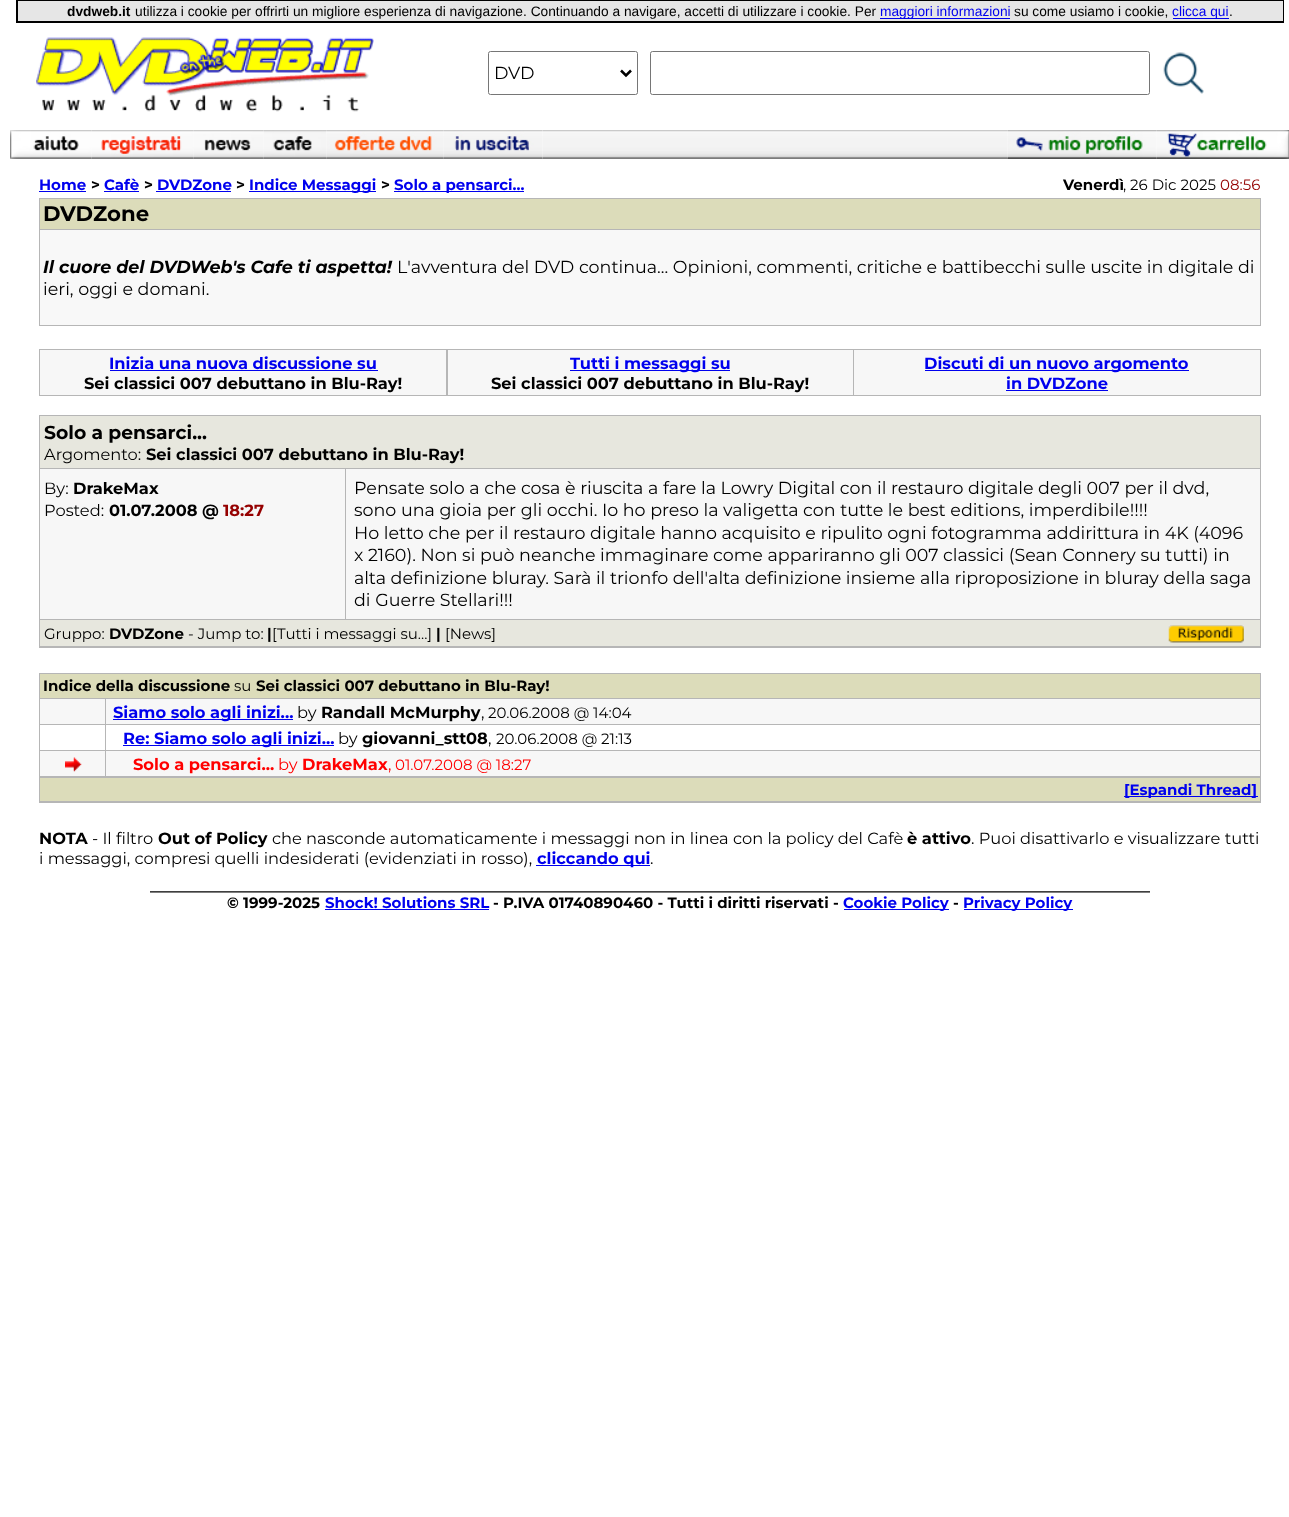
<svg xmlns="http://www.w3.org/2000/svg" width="1289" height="1517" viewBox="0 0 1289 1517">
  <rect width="100%" height="100%" fill="#ffffff"/>
  <rect x="16" y="0" width="1268" height="23" fill="#000000"/>
  <rect x="18" y="1" width="1265" height="20" fill="#e6e6e6"/>
  <text x="67" y="16" font-family="Liberation Sans" font-size="13.75" font-weight="bold" fill="#000000">dvdweb.it</text>
  <text x="135" y="16" font-family="Liberation Sans" font-size="13.75" fill="#000000">utilizza i cookie per offrirti un migliore esperienza di navigazione. Continuando a navigare, accetti di utilizzare i cookie. Per</text>
  <rect x="880" y="18" width="130" height="1" fill="#0000ee"/>
  <text x="880" y="16" font-family="Liberation Sans" font-size="13.75" fill="#0000ee">maggiori informazioni</text>
  <text x="1014" y="16" font-family="Liberation Sans" font-size="13.75" fill="#000000">su come usiamo i cookie,</text>
  <rect x="1173" y="18" width="56" height="1" fill="#0000ee"/>
  <text x="1172" y="16" font-family="Liberation Sans" font-size="13.75" fill="#0000ee">clicca qui</text>
  <text x="1229" y="16" font-family="Liberation Sans" font-size="13.75" fill="#000000">.</text>
  <image x="36" y="37" width="338" height="75" href="img1.png"/>
  <rect x="488.5" y="51.5" width="149" height="43" rx="2" fill="none" stroke="#767676"/>
  <path d="M621 70.5L626 75.5L631 70.5" fill="none" stroke="#000000" stroke-width="2.5"/>
  <text x="494" y="79" font-family="Montserrat" font-size="17.5" fill="#000000">DVD</text>
  <rect x="650.5" y="51.5" width="499" height="43" rx="2" fill="none" stroke="#767676"/>
  <image x="1163" y="52" width="41" height="42" href="img2.png"/>
  <image x="10" y="130" width="82" height="29" href="img3.png"/>
  <image x="91" y="130" width="103" height="29" href="img4.png"/>
  <image x="193" y="130" width="71" height="29" href="img5.png"/>
  <image x="263" y="130" width="64" height="29" href="img6.png"/>
  <image x="326" y="130" width="118" height="29" href="img7.png"/>
  <image x="443" y="130" width="100" height="29" href="img8.png"/>
  <image x="542" y="130" width="466" height="29" href="img9.png"/>
  <image x="1007" y="130" width="150" height="29" href="img10.png"/>
  <image x="1156" y="130" width="133" height="29" href="img11.png"/>
  <text x="39" y="190" font-family="Montserrat" font-size="15" font-weight="bold" fill="#0000ee">Home</text>
  <rect x="39" y="191" width="47" height="1" fill="#0000ee"/>
  <text x="91" y="190" font-family="Montserrat" font-size="15" font-weight="bold" fill="#000000">&gt;</text>
  <text x="104" y="190" font-family="Montserrat" font-size="15" font-weight="bold" fill="#0000ee">Cafè</text>
  <rect x="104" y="191" width="35" height="1" fill="#0000ee"/>
  <text x="144" y="190" font-family="Montserrat" font-size="15" font-weight="bold" fill="#000000">&gt;</text>
  <text x="157" y="190" font-family="Montserrat" font-size="15" font-weight="bold" fill="#0000ee">DVDZone</text>
  <rect x="156" y="191" width="75" height="1" fill="#0000ee"/>
  <text x="236" y="190" font-family="Montserrat" font-size="15" font-weight="bold" fill="#000000">&gt;</text>
  <rect x="249" y="191" width="127" height="1" fill="#0000ee"/>
  <text x="249" y="190" font-family="Montserrat" font-size="15" font-weight="bold" fill="#0000ee">Indice Messaggi</text>
  <text x="381" y="190" font-family="Montserrat" font-size="15" font-weight="bold" fill="#000000">&gt;</text>
  <rect x="394" y="191" width="130" height="1" fill="#0000ee"/>
  <text x="394" y="190" font-family="Montserrat" font-size="15" font-weight="bold" fill="#0000ee">Solo a pensarci...</text>
  <text x="1063" y="190" font-family="Montserrat" font-size="15" font-weight="bold" fill="#000000">Venerdì</text>
  <text x="1123" y="190" font-family="Montserrat" font-size="15" fill="#000000">, 26 Dic 2025</text>
  <text x="1220" y="190" font-family="Montserrat" font-size="15" fill="#950000">08:56</text>
  <rect x="39" y="198" width="1222" height="128" fill="#b6b6b6"/>
  <rect x="40" y="199" width="1220" height="30" fill="#dcdcba"/>
  <text x="43" y="221" font-family="Montserrat" font-size="21.25" font-weight="bold" fill="#000000">DVDZone</text>
  <rect x="40" y="230" width="1220" height="95" fill="#f8f8f8"/>
  <text x="43" y="273" font-family="Montserrat" font-size="17.5" font-weight="100" font-style="italic" fill="#000000">Il cuore del DVDWeb's Cafe ti aspetta!</text>
  <text x="397" y="273" font-family="Montserrat" font-size="17.5" fill="#000000">L'avventura del DVD continua... Opinioni, commenti, critiche e battibecchi sulle uscite in digitale di</text>
  <text x="43" y="295" font-family="Montserrat" font-size="17.5" fill="#000000">ieri, oggi e domani.</text>
  <rect x="39" y="349" width="1222" height="47" fill="#b6b6b6"/>
  <rect x="40" y="350" width="406" height="45" fill="#f7f7f7"/>
  <text x="109" y="369" font-family="Montserrat" font-size="16.25" font-weight="bold" fill="#0000ee">Inizia una nuova discussione su</text>
  <rect x="110" y="370" width="268" height="1" fill="#0000ee"/>
  <text x="84" y="389" font-family="Montserrat" font-size="16.25" font-weight="bold" fill="#000000">Sei classici 007 debuttano in Blu-Ray!</text>
  <rect x="448" y="350" width="405" height="45" fill="#f7f7f7"/>
  <rect x="570" y="370" width="160" height="1" fill="#0000ee"/>
  <text x="570" y="369" font-family="Montserrat" font-size="16.25" font-weight="bold" fill="#0000ee">Tutti i messaggi su</text>
  <text x="491" y="389" font-family="Montserrat" font-size="16.25" font-weight="bold" fill="#000000">Sei classici 007 debuttano in Blu-Ray!</text>
  <rect x="854" y="350" width="406" height="45" fill="#f7f7f7"/>
  <rect x="925" y="370" width="264" height="1" fill="#0000ee"/>
  <text x="924" y="369" font-family="Montserrat" font-size="16.25" font-weight="bold" fill="#0000ee">Discuti di un nuovo argomento</text>
  <text x="1006" y="389" font-family="Montserrat" font-size="16.25" font-weight="bold" fill="#0000ee">in DVDZone</text>
  <rect x="1006" y="390" width="102" height="1" fill="#0000ee"/>
  <rect x="39" y="415" width="1222" height="233" fill="#b6b6b6"/>
  <rect x="40" y="416" width="1220" height="52" fill="#e7e7de"/>
  <text x="44" y="439" font-family="Montserrat" font-size="18.75" font-weight="bold" fill="#000000">Solo a pensarci...</text>
  <text x="44" y="460" font-family="Montserrat" font-size="16.25" fill="#000000">Argomento:</text>
  <text x="146" y="460" font-family="Montserrat" font-size="16.25" font-weight="bold" fill="#000000">Sei classici 007 debuttano in Blu-Ray!</text>
  <rect x="40" y="469" width="305" height="150" fill="#f7f7f7"/>
  <text x="44" y="494" font-family="Montserrat" font-size="16.25" fill="#000000">By:</text>
  <text x="73" y="494" font-family="Montserrat" font-size="16.25" font-weight="bold" fill="#000000">DrakeMax</text>
  <text x="44" y="516" font-family="Montserrat" font-size="16.25" fill="#000000">Posted:</text>
  <text x="109" y="516" font-family="Montserrat" font-size="16.25" font-weight="bold" fill="#000000">01.07.2008 @</text>
  <text x="223" y="516" font-family="Montserrat" font-size="16.25" font-weight="bold" fill="#950000">18:27</text>
  <rect x="346" y="469" width="914" height="150" fill="#f7f7f7"/>
  <text x="354" y="494" font-family="Montserrat" font-size="17.5" fill="#000000">Pensate solo a che cosa è riuscita a fare la Lowry Digital con il restauro digitale degli 007 per il dvd,</text>
  <text x="354" y="516" font-family="Montserrat" font-size="17.5" fill="#000000">sono una gioia per gli occhi. Io ho preso la valigetta con tutte le best editions, imperdibile!!!!</text>
  <text x="354" y="539" font-family="Montserrat" font-size="17.5" fill="#000000">Ho letto che per il restauro digitale hanno acquisito e ripulito ogni fotogramma addirittura in 4K (4096</text>
  <text x="354" y="561" font-family="Montserrat" font-size="17.5" fill="#000000">x 2160). Non si può neanche immaginare come appariranno gli 007 classici (Sean Connery su tutti) in</text>
  <text x="354" y="584" font-family="Montserrat" font-size="17.5" fill="#000000">alta definizione bluray. Sarà il trionfo dell'alta definizione insieme alla riproposizione in bluray della saga</text>
  <text x="354" y="606" font-family="Montserrat" font-size="17.5" fill="#000000">di Guerre Stellari!!!</text>
  <rect x="40" y="620" width="1220" height="26" fill="#e7e7de"/>
  <text x="44" y="639" font-family="Montserrat" font-size="15" fill="#000000">Gruppo:</text>
  <text x="109" y="639" font-family="Montserrat" font-size="15" font-weight="bold" fill="#000000">DVDZone</text>
  <text x="188" y="639" font-family="Montserrat" font-size="15" fill="#000000">- Jump to:</text>
  <text x="267" y="639" font-family="Montserrat" font-size="15" font-weight="bold" fill="#000000">|</text>
  <text x="272" y="639" font-family="Montserrat" font-size="15" fill="#000000">[Tutti i messaggi su...]</text>
  <text x="436" y="639" font-family="Montserrat" font-size="15" font-weight="bold" fill="#000000">|</text>
  <text x="445" y="639" font-family="Montserrat" font-size="15" fill="#000000">[News]</text>
  <image x="1168" y="625" width="76" height="18" href="img12.png"/>
  <rect x="39" y="673" width="1222" height="130" fill="#b6b6b6"/>
  <rect x="40" y="674" width="1220" height="24" fill="#dcdcba"/>
  <text x="43" y="691" font-family="Montserrat" font-size="15" font-weight="bold" fill="#000000">Indice della discussione</text>
  <text x="234" y="691" font-family="Montserrat" font-size="15" fill="#000000">su</text>
  <text x="256" y="691" font-family="Montserrat" font-size="15" font-weight="bold" fill="#000000">Sei classici 007 debuttano in Blu-Ray!</text>
  <rect x="40" y="699" width="65" height="25" fill="#f7f7f7"/>
  <rect x="106" y="699" width="1154" height="25" fill="#f7f7f7"/>
  <rect x="113" y="719" width="180" height="1" fill="#0000ee"/>
  <text x="113" y="718" font-family="Montserrat" font-size="16.25" font-weight="bold" fill="#0000ee">Siamo solo agli inizi...</text>
  <text x="297" y="718" font-family="Montserrat" font-size="16.25" fill="#000000">by</text>
  <text x="321" y="718" font-family="Montserrat" font-size="16.25" font-weight="bold" fill="#000000">Randall McMurphy</text>
  <text x="481" y="718" font-family="Montserrat" font-size="16.25" fill="#000000">,</text>
  <text x="488" y="718" font-family="Montserrat" font-size="15" fill="#000000">20.06.2008 @ 14:04</text>
  <rect x="40" y="725" width="65" height="25" fill="#ffffff"/>
  <rect x="106" y="725" width="1154" height="25" fill="#ffffff"/>
  <rect x="123" y="745" width="211" height="1" fill="#0000ee"/>
  <text x="123" y="744" font-family="Montserrat" font-size="16.25" font-weight="bold" fill="#0000ee">Re: Siamo solo agli inizi...</text>
  <text x="338" y="744" font-family="Montserrat" font-size="16.25" fill="#000000">by</text>
  <text x="362" y="744" font-family="Montserrat" font-size="16.25" font-weight="bold" fill="#000000">giovanni_stt08</text>
  <text x="488" y="744" font-family="Montserrat" font-size="16.25" fill="#000000">,</text>
  <text x="496" y="744" font-family="Montserrat" font-size="15" fill="#000000">20.06.2008 @ 21:13</text>
  <rect x="40" y="751" width="65" height="25" fill="#f7f7f7"/>
  <image x="65" y="757" width="17" height="15" href="img13.png"/>
  <rect x="106" y="751" width="1154" height="25" fill="#f7f7f7"/>
  <text x="133" y="770" font-family="Montserrat" font-size="16.25" font-weight="bold" fill="#ff0000">Solo a pensarci...</text>
  <text x="278" y="770" font-family="Montserrat" font-size="16.25" fill="#ff0000">by</text>
  <text x="302" y="770" font-family="Montserrat" font-size="16.25" font-weight="bold" fill="#ff0000">DrakeMax</text>
  <text x="388" y="770" font-family="Montserrat" font-size="16.25" fill="#ff0000">,</text>
  <text x="395" y="770" font-family="Montserrat" font-size="15" fill="#ff0000">01.07.2008 @ 18:27</text>
  <rect x="40" y="778" width="1220" height="23" fill="#dcdcba"/>
  <rect x="1124" y="796" width="134" height="1" fill="#0000ee"/>
  <text x="1124" y="795" font-family="Montserrat" font-size="15" font-weight="bold" fill="#0000ee">[Espandi Thread]</text>
  <text x="39" y="844" font-family="Montserrat" font-size="16.25" font-weight="bold" fill="#000000">NOTA</text>
  <text x="92" y="844" font-family="Montserrat" font-size="16.25" fill="#000000">- Il filtro</text>
  <text x="158" y="844" font-family="Montserrat" font-size="16.25" font-weight="bold" fill="#000000">Out of Policy</text>
  <text x="272" y="844" font-family="Montserrat" font-size="16.25" fill="#000000">che nasconde automaticamente i messaggi non in linea con la policy del Cafè</text>
  <text x="907" y="844" font-family="Montserrat" font-size="16.25" font-weight="bold" fill="#000000">è attivo</text>
  <text x="971" y="844" font-family="Montserrat" font-size="16.25" fill="#000000">. Puoi disattivarlo e visualizzare tutti</text>
  <text x="39" y="864" font-family="Montserrat" font-size="16.25" fill="#000000">i messaggi, compresi quelli indesiderati (evidenziati in rosso),</text>
  <rect x="536" y="865" width="114" height="1" fill="#0000ee"/>
  <text x="537" y="864" font-family="Montserrat" font-size="16.25" font-weight="bold" fill="#0000ee">cliccando qui</text>
  <text x="650" y="864" font-family="Montserrat" font-size="16.25" fill="#000000">.</text>
  <image x="150" y="891" width="1000" height="2" href="img14.png"/>
  <text x="227" y="908" font-family="Montserrat" font-size="15" font-weight="bold" fill="#000000">© 1999-2025</text>
  <text x="325" y="908" font-family="Montserrat" font-size="15" font-weight="bold" fill="#0000ee">Shock! Solutions SRL</text>
  <rect x="325" y="909" width="164" height="1" fill="#0000ee"/>
  <text x="493" y="908" font-family="Montserrat" font-size="15" font-weight="bold" fill="#000000">- P.IVA 01740890460 - Tutti i diritti riservati -</text>
  <rect x="844" y="909" width="105" height="1" fill="#0000ee"/>
  <text x="843" y="908" font-family="Montserrat" font-size="15" font-weight="bold" fill="#0000ee">Cookie Policy</text>
  <text x="953" y="908" font-family="Montserrat" font-size="15" font-weight="bold" fill="#000000">-</text>
  <rect x="964" y="909" width="109" height="1" fill="#0000ee"/>
  <text x="963" y="908" font-family="Montserrat" font-size="15" font-weight="bold" fill="#0000ee">Privacy Policy</text>
</svg>
